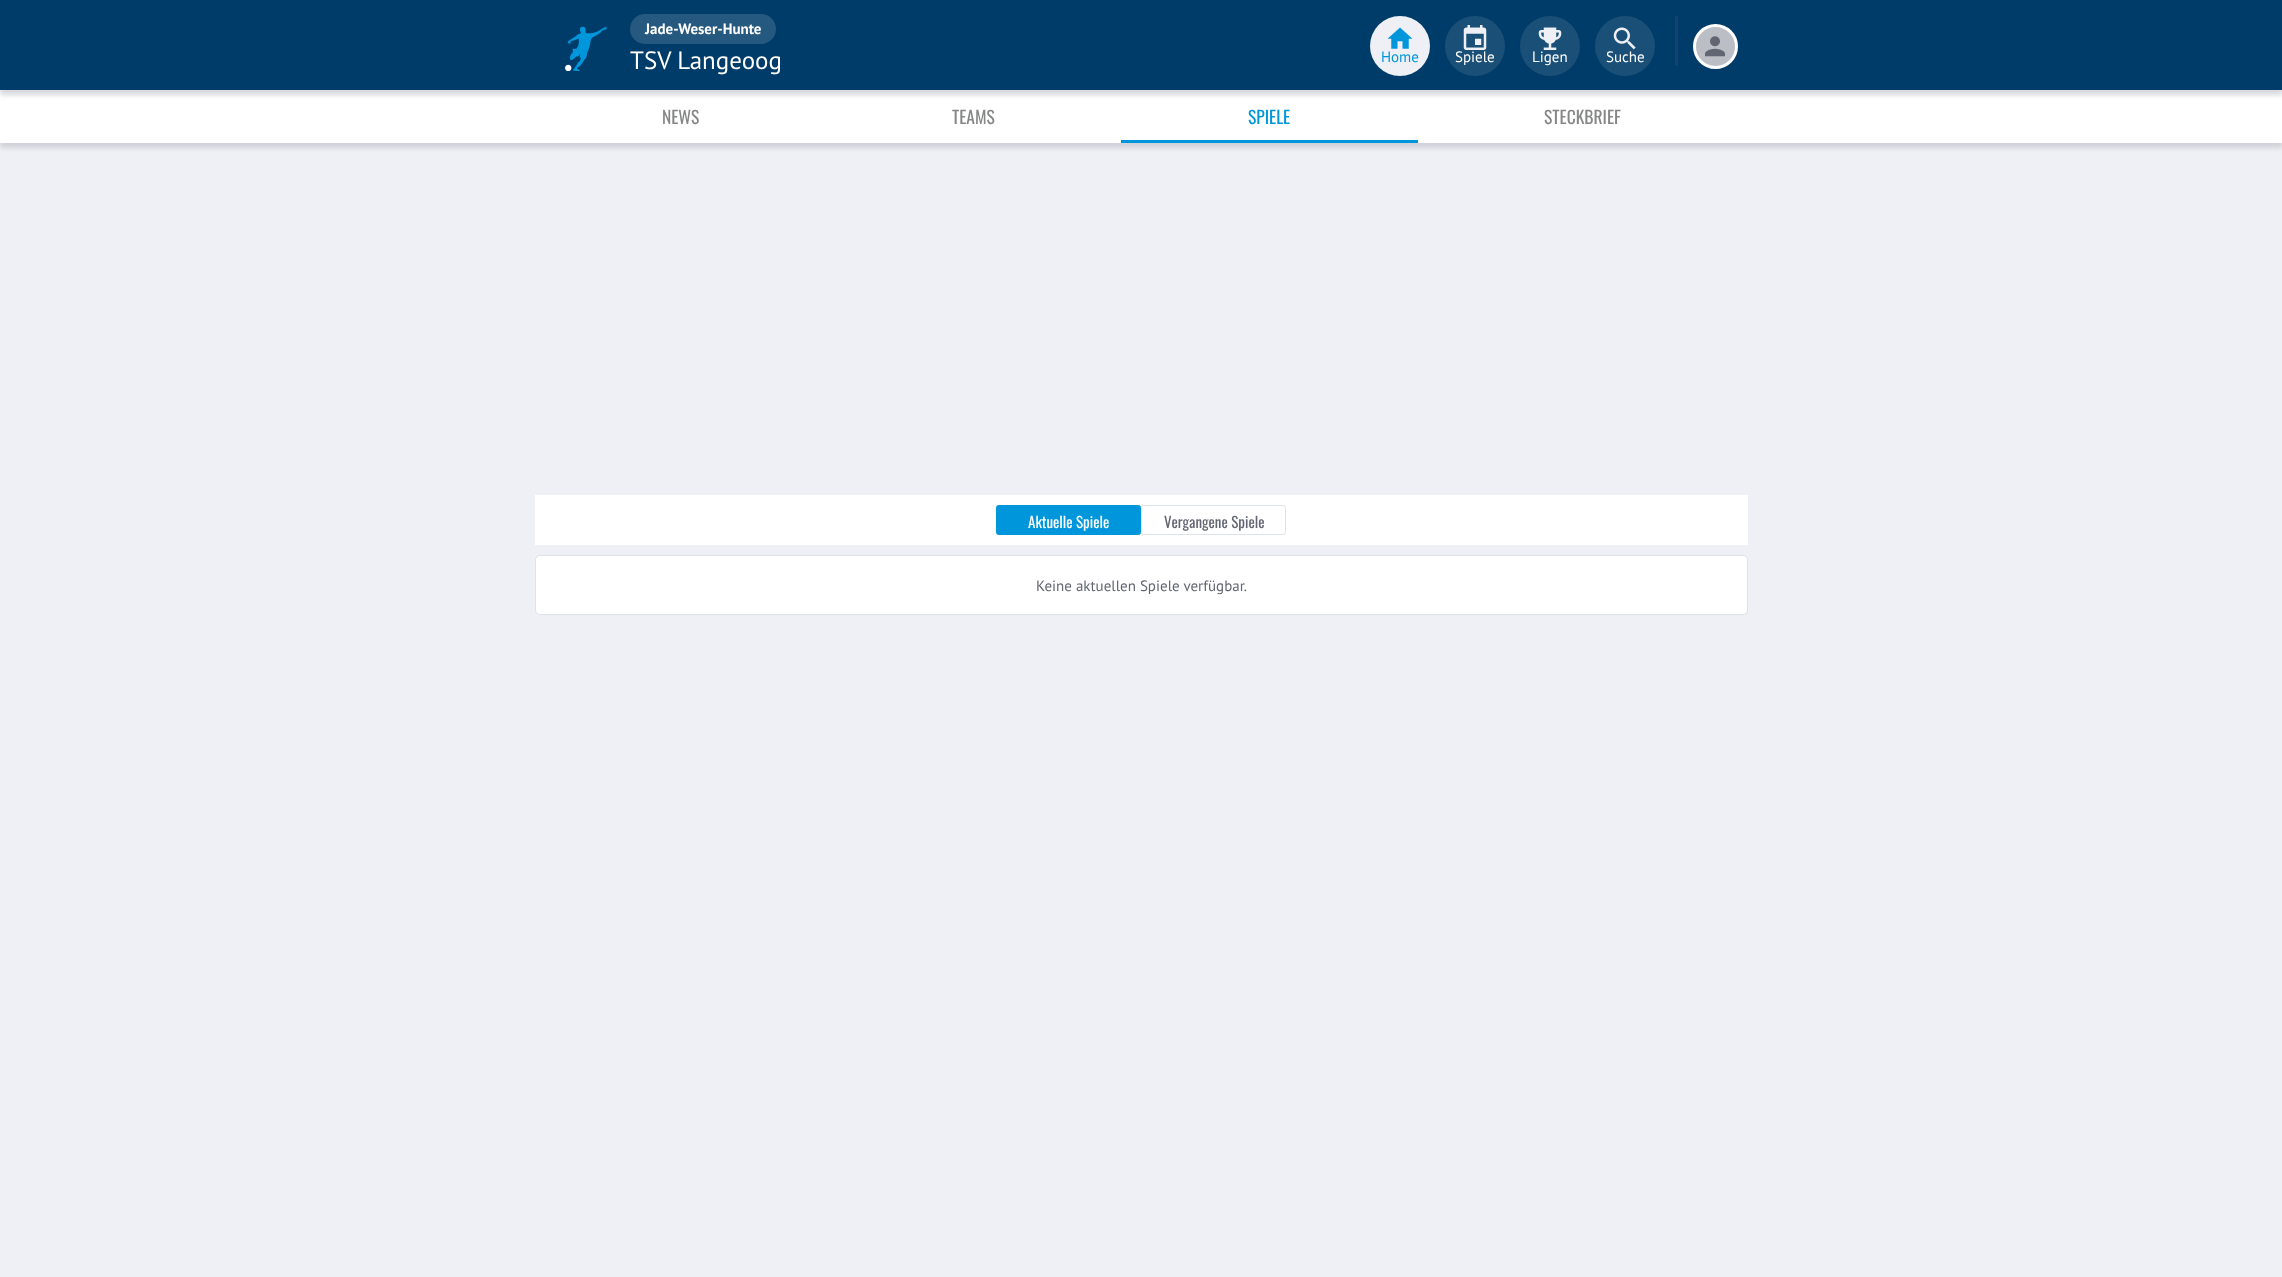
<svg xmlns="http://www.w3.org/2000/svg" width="2282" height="1277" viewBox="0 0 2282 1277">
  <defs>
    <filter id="blur1" x="-50%" y="-200%" width="200%" height="500%"><feGaussianBlur stdDeviation="2.5"/></filter>
  </defs>
  <rect width="100%" height="100%" fill="#eef0f5"/>
  <rect x="0" y="95" width="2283" height="53" fill="#bcbec6" fill-opacity="0.6" filter="url(#blur1)"/>
  <rect x="0" y="90" width="2282" height="53" fill="#ffffff"/>
  <rect x="0" y="5" width="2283" height="90" fill="#bcbec6" fill-opacity="0.6" filter="url(#blur1)"/>
  <rect x="0" y="0" width="2282" height="90" fill="#003c69"/>
  <image x="565" y="26" width="43" height="45" href="img1.png"/>
  <rect x="630" y="14" width="146" height="30" rx="15" fill="#265980"/>
  <text x="645" y="34" font-family="PT Sans" font-size="15" font-weight="bold" fill="#ffffff">Jade-Weser-Hunte</text>
  <text x="630" y="69" font-family="PT Sans" font-size="25" fill="#ffffff">TSV Langeoog</text>
  <circle cx="1400" cy="46" r="30" fill="#eef0f5"/>
  <image x="1387" y="27" width="26" height="22" href="img2.png"/>
  <text x="1381" y="62" font-family="PT Sans" font-size="15" fill="#0096db">Home</text>
  <circle cx="1475" cy="46" r="30" fill="#1a5078"/>
  <image x="1463" y="25" width="24" height="25" href="img3.png"/>
  <text x="1455" y="62" font-family="PT Sans" font-size="15" fill="#ffffff">Spiele</text>
  <circle cx="1550" cy="46" r="30" fill="#1a5078"/>
  <image x="1538" y="27" width="24" height="23" href="img4.png"/>
  <text x="1532" y="62" font-family="PT Sans" font-size="15" fill="#ffffff">Ligen</text>
  <circle cx="1625" cy="46" r="30" fill="#1a5078"/>
  <image x="1613" y="27" width="23" height="23" href="img5.png"/>
  <text x="1606" y="62" font-family="PT Sans" font-size="15" fill="#ffffff">Suche</text>
  <rect x="1675" y="16" width="3" height="50" fill="#17416d"/>
  <circle cx="1715.5" cy="46.5" r="21" fill="#bcbec6" stroke="#ffffff" stroke-width="3"/>
  <image x="1705" y="36" width="20" height="21" href="img6.png"/>
  <text x="662" y="124" font-family="Oswald" font-size="17.5" fill="#858686">NEWS</text>
  <text x="952" y="124" font-family="Oswald" font-size="17.5" fill="#858686">TEAMS</text>
  <text x="1248" y="124" font-family="Oswald" font-size="17.5" fill="#0096db">SPIELE</text>
  <text x="1544" y="124" font-family="Oswald" font-size="17.5" fill="#858686">STECKBRIEF</text>
  <rect x="1121" y="140" width="297" height="3" fill="#0096db"/>
  <rect x="535" y="495" width="1213" height="50" fill="#ffffff"/>
  <rect x="996.5" y="505.5" width="144" height="29" rx="2" fill="#0096db" stroke="#0096db"/>
  <text x="1028" y="528" font-family="Oswald" font-size="15" fill="#ffffff">Aktuelle Spiele</text>
  <rect x="1141.5" y="505.5" width="144" height="29" rx="2" fill="none" stroke="#dee2e9"/>
  <text x="1164" y="528" font-family="Oswald" font-size="15" fill="#616672">Vergangene Spiele</text>
  <rect x="535.5" y="555.5" width="1212" height="59" rx="4.5" fill="#ffffff" stroke="#dee2e9"/>
  <text x="1036" y="591" font-family="PT Sans" font-size="15" fill="#616672">Keine aktuellen Spiele verfügbar.</text>
</svg>
